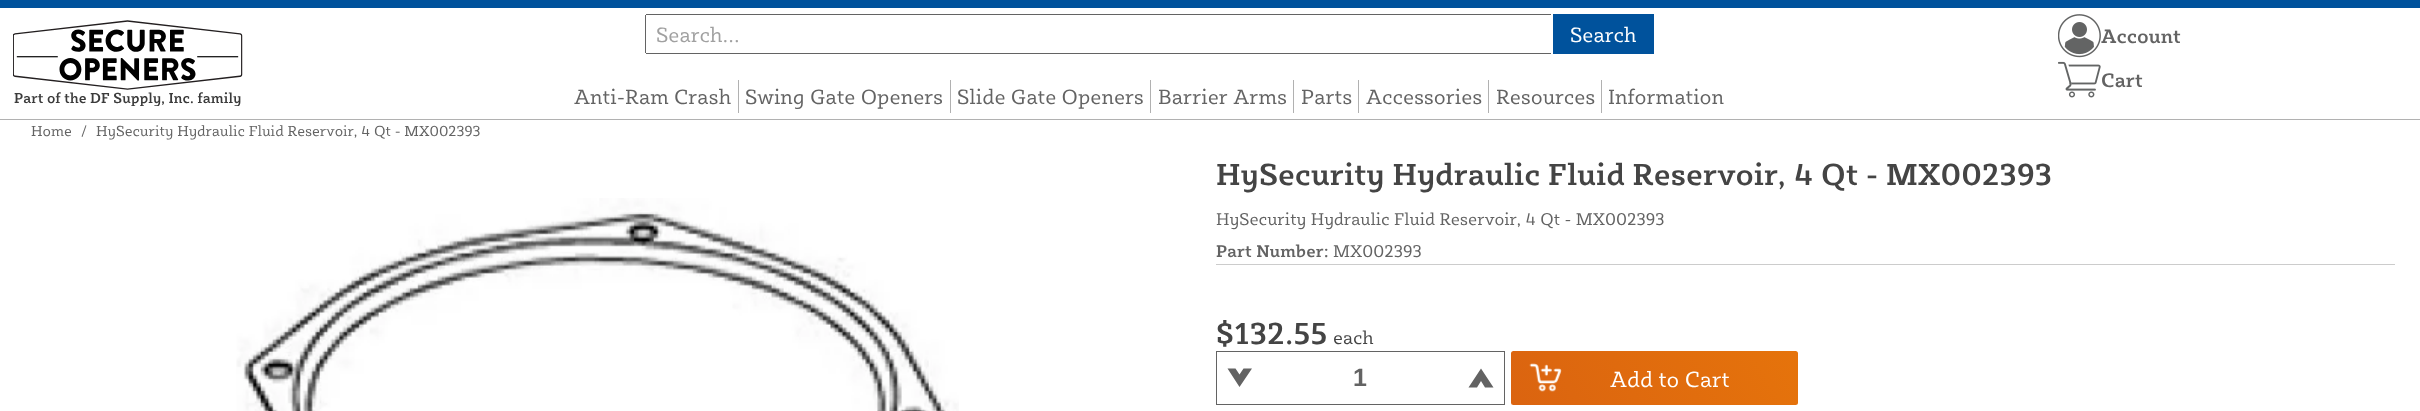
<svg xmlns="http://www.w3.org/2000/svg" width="2420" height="411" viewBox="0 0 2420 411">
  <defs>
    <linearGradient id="g1" gradientUnits="userSpaceOnUse" x1="1371" y1="110" x2="1633" y2="-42"><stop offset="0" stop-color="#00529c"/><stop offset="0.13" stop-color="#00529c"/><stop offset="0.2" stop-color="#007ce8"/><stop offset="0.27" stop-color="#00529c"/><stop offset="1" stop-color="#00529c"/></linearGradient>
    <linearGradient id="g2" gradientUnits="userSpaceOnUse" x1="1023" y1="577" x2="1713" y2="179"><stop offset="0" stop-color="#cf5315"/><stop offset="0.13" stop-color="#cf5315"/><stop offset="0.2" stop-color="#e6740b"/><stop offset="0.27" stop-color="#cf5315"/><stop offset="1" stop-color="#e6740b"/></linearGradient>
  </defs>
  <rect width="100%" height="100%" fill="#ffffff"/>
  <rect x="0" y="0" width="2420" height="8" fill="#00529c"/>
  <rect x="0" y="119" width="2420" height="1" fill="#b1b1b1"/>
  <image x="13" y="20" width="230" height="86" href="img1.png"/>
  <rect x="646" y="14" width="905" height="1" fill="#636363"/>
  <rect x="646" y="53" width="905" height="1" fill="#636363"/>
  <rect x="645" y="15" width="1" height="38" fill="#636363"/>
  <text x="656" y="42" font-family="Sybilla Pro" font-size="21.25" fill="#a0a0a0">Search...</text>
  <rect x="1553" y="14" width="101" height="40" fill="url(#g1)"/>
  <text x="1570" y="42" font-family="Sybilla Pro" font-size="21.25" fill="#ffffff">Search</text>
  <image x="2058" y="14" width="43" height="44" href="img2.png"/>
  <text x="2101" y="43" font-family="Sybilla Pro" font-size="20" font-weight="500" fill="#636363">Account</text>
  <image x="2058" y="61" width="43" height="37" href="img3.png"/>
  <text x="2101" y="87" font-family="Sybilla Pro" font-size="20" font-weight="500" fill="#636363">Cart</text>
  <rect x="738" y="80" width="1" height="33" fill="#b1b1b1"/>
  <text x="574" y="104" font-family="Sybilla Pro" font-size="21.25" fill="#636363">Anti-Ram Crash</text>
  <rect x="950" y="80" width="1" height="33" fill="#b1b1b1"/>
  <text x="745" y="104" font-family="Sybilla Pro" font-size="21.25" fill="#636363">Swing Gate Openers</text>
  <rect x="1150" y="80" width="1" height="33" fill="#b1b1b1"/>
  <text x="957" y="104" font-family="Sybilla Pro" font-size="21.25" fill="#636363">Slide Gate Openers</text>
  <rect x="1293" y="80" width="1" height="33" fill="#b1b1b1"/>
  <text x="1158" y="104" font-family="Sybilla Pro" font-size="21.25" fill="#636363">Barrier Arms</text>
  <rect x="1358" y="80" width="1" height="33" fill="#b1b1b1"/>
  <text x="1301" y="104" font-family="Sybilla Pro" font-size="21.25" fill="#636363">Parts</text>
  <rect x="1488" y="80" width="1" height="33" fill="#b1b1b1"/>
  <text x="1366" y="104" font-family="Sybilla Pro" font-size="21.25" fill="#636363">Accessories</text>
  <rect x="1601" y="80" width="1" height="33" fill="#b1b1b1"/>
  <text x="1496" y="104" font-family="Sybilla Pro" font-size="21.25" fill="#636363">Resources</text>
  <text x="1608" y="104" font-family="Sybilla Pro" font-size="21.25" fill="#636363">Information</text>
  <text x="31" y="136" font-family="Sybilla Pro" font-size="15" fill="#636363">Home</text>
  <text x="81" y="136" font-family="Sybilla Pro" font-size="15" fill="#636363">/</text>
  <text x="96" y="136" font-family="Sybilla Pro" font-size="15" fill="#636363">HySecurity Hydraulic Fluid Reservoir, 4 Qt - MX002393</text>
  <image x="236" y="198" width="723" height="213" href="img4.png"/>
  <text x="1216" y="185" font-family="Sybilla Pro" font-size="31.25" font-weight="500" fill="#444444">HySecurity Hydraulic Fluid Reservoir, 4 Qt - MX002393</text>
  <rect x="1216" y="264" width="1179" height="1" fill="#cccccc"/>
  <text x="1216" y="225" font-family="Sybilla Pro" font-size="17.5" fill="#636363">HySecurity Hydraulic Fluid Reservoir, 4 Qt - MX002393</text>
  <text x="1216" y="257" font-family="Sybilla Pro" font-size="17.5" font-weight="500" fill="#636363">Part Number:</text>
  <text x="1333" y="257" font-family="Sybilla Pro" font-size="17.5" fill="#636363">MX002393</text>
  <text x="1216" y="344" font-family="Sybilla Pro" font-size="31.25" font-weight="500" fill="#444444">$132.55</text>
  <text x="1333" y="344" font-family="Sybilla Pro" font-size="19" fill="#444444">each</text>
  <rect x="1216.5" y="351.5" width="288" height="53" fill="none" stroke="#636363"/>
  <path d="M1239.5 387L1227.5 368.5H1235.5L1239.5 374.5L1243.5 368.5H1252Z" fill="#636363"/>
  <text x="1353" y="386" font-family="Liberation Sans" font-size="25" font-weight="bold" fill="#636363">1</text>
  <path d="M1481 368.5L1493.5 387.5H1485L1481 381L1477 387.5H1468.5Z" fill="#636363"/>
  <rect x="1511" y="351" width="287" height="54" rx="2.5" fill="url(#g2)"/>
  <image x="1529" y="363" width="33" height="29" href="img5.png"/>
  <text x="1610" y="387" font-family="Sybilla Pro" font-size="22.5" fill="#ffffff">Add to Cart</text>
</svg>
